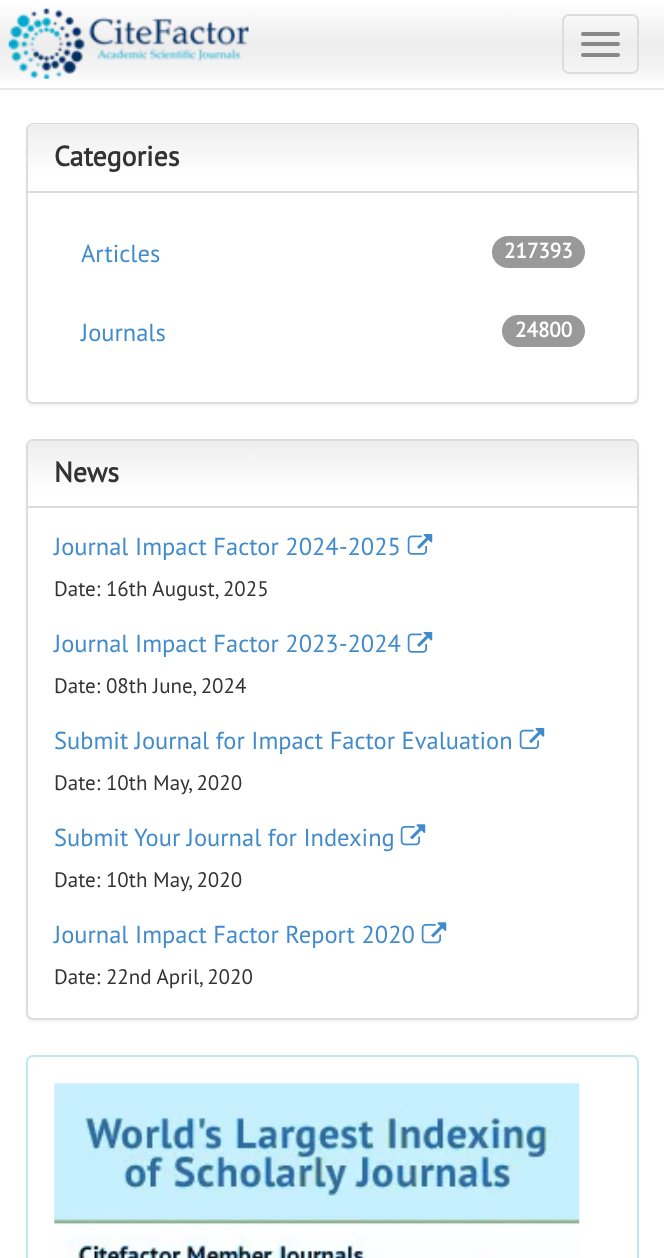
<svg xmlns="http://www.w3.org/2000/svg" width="664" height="1258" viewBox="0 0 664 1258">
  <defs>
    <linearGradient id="g1" gradientUnits="userSpaceOnUse" x1="333" y1="0" x2="333" y2="88"><stop offset="0" stop-color="#ffffff"/><stop offset="0.51" stop-color="#ededed"/><stop offset="0.74" stop-color="#f3f3f3"/><stop offset="1" stop-color="#ffffff"/></linearGradient>
    <filter id="blur1" x="-50%" y="-200%" width="200%" height="500%"><feGaussianBlur stdDeviation="1"/></filter>
    <linearGradient id="g2" gradientUnits="userSpaceOnUse" x1="333" y1="124" x2="333" y2="191"><stop offset="0" stop-color="#eeeeee"/><stop offset="0.79" stop-color="#ffffff"/></linearGradient>
    <linearGradient id="g3" gradientUnits="userSpaceOnUse" x1="333" y1="441" x2="333" y2="506"><stop offset="0" stop-color="#eeeeee"/><stop offset="0.79" stop-color="#ffffff"/></linearGradient>
  </defs>
  <rect width="100%" height="100%" fill="#ffffff"/>
  <rect x="0" y="6" width="664" height="77" fill="url(#g1)"/>
  <rect x="0" y="88" width="664" height="2" fill="#e7e7e7"/>
  <image x="8" y="8" width="241" height="71" href="img1.png"/>
  <rect x="563" y="15" width="75" height="58" rx="6" fill="none" stroke="#dddddd" stroke-width="2"/>
  <rect x="581" y="32" width="39" height="4" rx="2" fill="#888888"/>
  <rect x="581" y="42" width="39" height="4" rx="2" fill="#888888"/>
  <rect x="581" y="53" width="39" height="4" rx="2" fill="#888888"/>
  <rect x="26" y="124" width="613" height="282" rx="7" fill="#000000" fill-opacity="0.05" filter="url(#blur1)"/>
  <rect x="27" y="124" width="611" height="279" rx="6" fill="#ffffff" stroke="#dddddd" stroke-width="2"/>
  <path d="M33 124H632C635 124 637 126 637 129V191H28V129C28 126 30 124 33 124Z" fill="url(#g2)"/>
  <rect x="28" y="191" width="609" height="2" fill="#dddddd"/>
  <text x="54" y="166" font-family="PT Sans" font-size="28" font-weight="bold" fill="#333333">Categories</text>
  <text x="81" y="262" font-family="PT Sans" font-size="24.5" fill="#428bca">Articles</text>
  <rect x="492" y="236" width="93" height="32" rx="16" fill="#999999"/>
  <text x="504" y="258" font-family="PT Sans" font-size="21" font-weight="bold" fill="#ffffff">217393</text>
  <text x="81" y="341" font-family="PT Sans" font-size="24.5" fill="#428bca">Journals</text>
  <rect x="502" y="315" width="83" height="32" rx="16" fill="#999999"/>
  <text x="515" y="337" font-family="PT Sans" font-size="21" font-weight="bold" fill="#ffffff">24800</text>
  <rect x="26" y="441" width="613" height="581" rx="7" fill="#000000" fill-opacity="0.05" filter="url(#blur1)"/>
  <rect x="27" y="440" width="611" height="579" rx="6" fill="#ffffff" stroke="#dddddd" stroke-width="2"/>
  <path d="M33 441H632C635 441 637 443 637 446V506H28V446C28 443 30 441 33 441Z" fill="url(#g3)"/>
  <rect x="28" y="506" width="609" height="2" fill="#dddddd"/>
  <text x="54" y="482" font-family="PT Sans" font-size="28" font-weight="bold" fill="#333333">News</text>
  <text x="54" y="555" font-family="PT Sans" font-size="24.5" fill="#428bca">Journal Impact Factor 2024-2025</text>
  <image x="407" y="534" width="26" height="21" href="img2.png"/>
  <text x="54" y="596" font-family="PT Sans" font-size="21" fill="#333333">Date: 16th August, 2025</text>
  <text x="54" y="652" font-family="PT Sans" font-size="24.5" fill="#428bca">Journal Impact Factor 2023-2024</text>
  <image x="407" y="632" width="26" height="21" href="img2.png"/>
  <text x="54" y="693" font-family="PT Sans" font-size="21" fill="#333333">Date: 08th June, 2024</text>
  <text x="54" y="749" font-family="PT Sans" font-size="24.5" fill="#428bca">Submit Journal for Impact Factor Evaluation</text>
  <image x="519" y="728" width="26" height="21" href="img3.png"/>
  <text x="54" y="790" font-family="PT Sans" font-size="21" fill="#333333">Date: 10th May, 2020</text>
  <text x="54" y="846" font-family="PT Sans" font-size="24.5" fill="#428bca">Submit Your Journal for Indexing</text>
  <image x="400" y="824" width="26" height="22" href="img4.png"/>
  <text x="54" y="887" font-family="PT Sans" font-size="21" fill="#333333">Date: 10th May, 2020</text>
  <text x="54" y="943" font-family="PT Sans" font-size="24.5" fill="#428bca">Journal Impact Factor Report 2020</text>
  <image x="421" y="922" width="26" height="22" href="img4.png"/>
  <text x="54" y="984" font-family="PT Sans" font-size="21" fill="#333333">Date: 22nd April, 2020</text>
  <rect x="27" y="1056" width="611" height="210" rx="6" fill="none" stroke="#bce8f1" stroke-width="2"/>
  <image x="54" y="1083" width="526" height="175" href="img5.png"/>
</svg>
